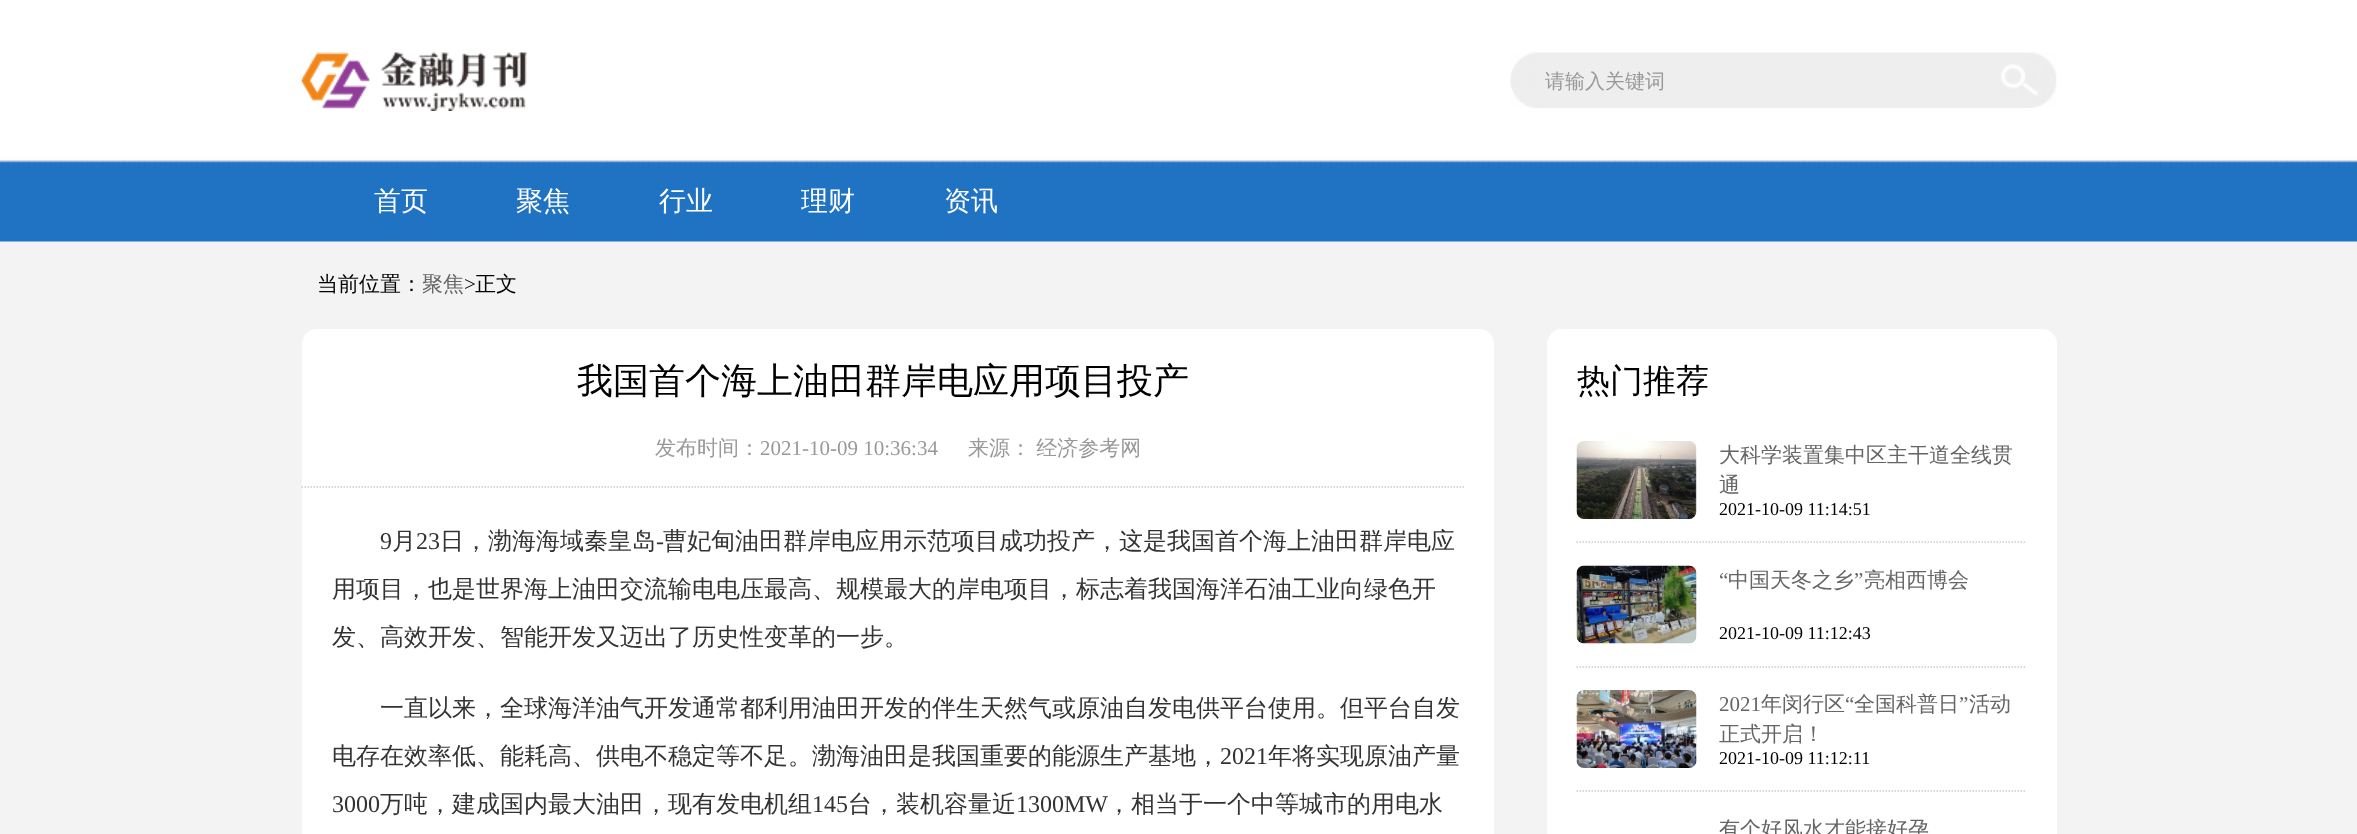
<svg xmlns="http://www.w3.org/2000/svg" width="2357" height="834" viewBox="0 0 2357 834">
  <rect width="100%" height="100%" fill="#f3f3f3"/>
  <image x="0" y="0" width="2357" height="242" href="img1.png"/>
  <image x="301" y="52" width="226" height="59" href="img2.png"/>
  <image x="1510" y="52" width="547" height="56" href="img3.png"/>
  <text x="1545" y="88" font-family="WenQuanYi Zen Hei" font-size="20" font-weight="500" fill="#999999">请输入关键词</text>
  <image x="2001" y="64" width="37" height="32" href="img4.png"/>
  <text x="374" y="210" font-family="WenQuanYi Zen Hei" font-size="27" font-weight="500" fill="#ffffff">首页</text>
  <text x="516" y="210" font-family="WenQuanYi Zen Hei" font-size="27" font-weight="500" fill="#ffffff">聚焦</text>
  <text x="659" y="210" font-family="WenQuanYi Zen Hei" font-size="27" font-weight="500" fill="#ffffff">行业</text>
  <text x="801" y="210" font-family="WenQuanYi Zen Hei" font-size="27" font-weight="500" fill="#ffffff">理财</text>
  <text x="944" y="210" font-family="WenQuanYi Zen Hei" font-size="27" font-weight="500" fill="#ffffff">资讯</text>
  <text x="317" y="291" font-family="WenQuanYi Zen Hei" font-size="21" font-weight="500" fill="#000000">当前位置：</text>
  <text x="422" y="291" font-family="WenQuanYi Zen Hei" font-size="21" font-weight="500" fill="#656565">聚焦</text>
  <text x="464" y="291" font-family="Liberation Serif" font-size="21" fill="#000000">&gt;</text>
  <text x="475" y="291" font-family="WenQuanYi Zen Hei" font-size="21" font-weight="500" fill="#000000">正文</text>
  <rect x="302" y="329" width="1192" height="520" rx="15" fill="#ffffff"/>
  <text x="577" y="393" font-family="WenQuanYi Zen Hei" font-size="36" font-weight="500" fill="#000000">我国首个海上油田群岸电应用项目投产</text>
  <path d="M301.5 487H1464" fill="none" stroke="#cccccc" stroke-width="1.5" stroke-dasharray="1.5 1.5"/>
  <text x="655" y="455" font-family="WenQuanYi Zen Hei" font-size="21" font-weight="500" fill="#999999">发布时间：</text>
  <text x="760" y="455" font-family="Liberation Serif" font-size="21" fill="#999999">2021-10-09 10:36:34</text>
  <text x="968" y="455" word-spacing="-1" font-family="WenQuanYi Zen Hei" font-size="21" font-weight="500" fill="#999999">来源： 经济参考网</text>
  <text x="380" y="549" font-family="Liberation Serif" font-size="24" fill="#333333">9</text>
  <text x="392" y="549" font-family="WenQuanYi Zen Hei" font-size="24" font-weight="500" fill="#333333">月</text>
  <text x="416" y="549" font-family="Liberation Serif" font-size="24" fill="#333333">23</text>
  <text x="440" y="549" font-family="WenQuanYi Zen Hei" font-size="24" font-weight="500" fill="#333333">日，渤海海域秦皇岛</text>
  <text x="656" y="549" font-family="Liberation Serif" font-size="24" fill="#333333">-</text>
  <text x="663" y="549" font-family="WenQuanYi Zen Hei" font-size="24" font-weight="500" fill="#333333">曹妃甸油田群岸电应用示范项目成功投产，这是我国首个海上油田群岸电应</text>
  <text x="332" y="597" font-family="WenQuanYi Zen Hei" font-size="24" font-weight="500" fill="#333333">用项目，也是世界海上油田交流输电电压最高、规模最大的岸电项目，标志着我国海洋石油工业向绿色开</text>
  <text x="332" y="645" font-family="WenQuanYi Zen Hei" font-size="24" font-weight="500" fill="#333333">发、高效开发、智能开发又迈出了历史性变革的一步。</text>
  <text x="380" y="716" font-family="WenQuanYi Zen Hei" font-size="24" font-weight="500" fill="#333333">一直以来，全球海洋油气开发通常都利用油田开发的伴生天然气或原油自发电供平台使用。但平台自发</text>
  <text x="332" y="764" font-family="WenQuanYi Zen Hei" font-size="24" font-weight="500" fill="#333333">电存在效率低、能耗高、供电不稳定等不足。渤海油田是我国重要的能源生产基地，</text>
  <text x="1220" y="764" font-family="Liberation Serif" font-size="24" fill="#333333">2021</text>
  <text x="1268" y="764" font-family="WenQuanYi Zen Hei" font-size="24" font-weight="500" fill="#333333">年将实现原油产量</text>
  <text x="332" y="812" font-family="Liberation Serif" font-size="24" fill="#333333">3000</text>
  <text x="380" y="812" font-family="WenQuanYi Zen Hei" font-size="24" font-weight="500" fill="#333333">万吨，建成国内最大油田，现有发电机组</text>
  <text x="812" y="812" font-family="Liberation Serif" font-size="24" fill="#333333">145</text>
  <text x="848" y="812" font-family="WenQuanYi Zen Hei" font-size="24" font-weight="500" fill="#333333">台，装机容量近</text>
  <text x="1016" y="812" font-family="Liberation Serif" font-size="24" fill="#333333">1300MW</text>
  <text x="1107" y="812" font-family="WenQuanYi Zen Hei" font-size="24" font-weight="500" fill="#333333">，相当于一个中等城市的用电水</text>
  <rect x="1547" y="329" width="510" height="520" rx="15" fill="#ffffff"/>
  <text x="1577" y="392" font-family="WenQuanYi Zen Hei" font-size="33" font-weight="500" fill="#000000">热门推荐</text>
  <path d="M1576.5 542H2026.5" fill="none" stroke="#cccccc" stroke-width="1.5" stroke-dasharray="1.5 1.5"/>
  <image x="1576" y="441" width="121" height="78" href="img5.png"/>
  <text x="1719" y="462" font-family="WenQuanYi Zen Hei" font-size="21" font-weight="500" fill="#656565">大科学装置集中区主干道全线贯</text>
  <text x="1719" y="492" font-family="WenQuanYi Zen Hei" font-size="21" font-weight="500" fill="#656565">通</text>
  <text x="1719" y="515" font-family="Liberation Serif" font-size="18" fill="#000000">2021-10-09 11:14:51</text>
  <path d="M1576.5 667H2026.5" fill="none" stroke="#cccccc" stroke-width="1.5" stroke-dasharray="1.5 1.5"/>
  <image x="1576" y="565" width="121" height="79" href="img6.png"/>
  <text x="1719" y="587" font-family="Liberation Serif" font-size="21" fill="#656565">“</text>
  <text x="1728" y="587" font-family="WenQuanYi Zen Hei" font-size="21" font-weight="500" fill="#656565">中国天冬之乡</text>
  <text x="1854" y="587" font-family="Liberation Serif" font-size="21" fill="#656565">”</text>
  <text x="1864" y="587" font-family="WenQuanYi Zen Hei" font-size="21" font-weight="500" fill="#656565">亮相西博会</text>
  <text x="1719" y="639" font-family="Liberation Serif" font-size="18" fill="#000000">2021-10-09 11:12:43</text>
  <path d="M1576.5 791H2026.5" fill="none" stroke="#cccccc" stroke-width="1.5" stroke-dasharray="1.5 1.5"/>
  <image x="1576" y="690" width="121" height="78" href="img7.png"/>
  <text x="1719" y="711" font-family="Liberation Serif" font-size="21" fill="#656565">2021</text>
  <text x="1761" y="711" font-family="WenQuanYi Zen Hei" font-size="21" font-weight="500" fill="#656565">年闵行区</text>
  <text x="1845" y="711" font-family="Liberation Serif" font-size="21" fill="#656565">“</text>
  <text x="1854" y="711" font-family="WenQuanYi Zen Hei" font-size="21" font-weight="500" fill="#656565">全国科普日</text>
  <text x="1959" y="711" font-family="Liberation Serif" font-size="21" fill="#656565">”</text>
  <text x="1969" y="711" font-family="WenQuanYi Zen Hei" font-size="21" font-weight="500" fill="#656565">活动</text>
  <text x="1719" y="741" font-family="WenQuanYi Zen Hei" font-size="21" font-weight="500" fill="#656565">正式开启！</text>
  <text x="1719" y="764" font-family="Liberation Serif" font-size="18" fill="#000000">2021-10-09 11:12:11</text>
  <text x="1719" y="836" font-family="WenQuanYi Zen Hei" font-size="21" font-weight="500" fill="#656565">有个好风水才能接好孕</text>
</svg>
